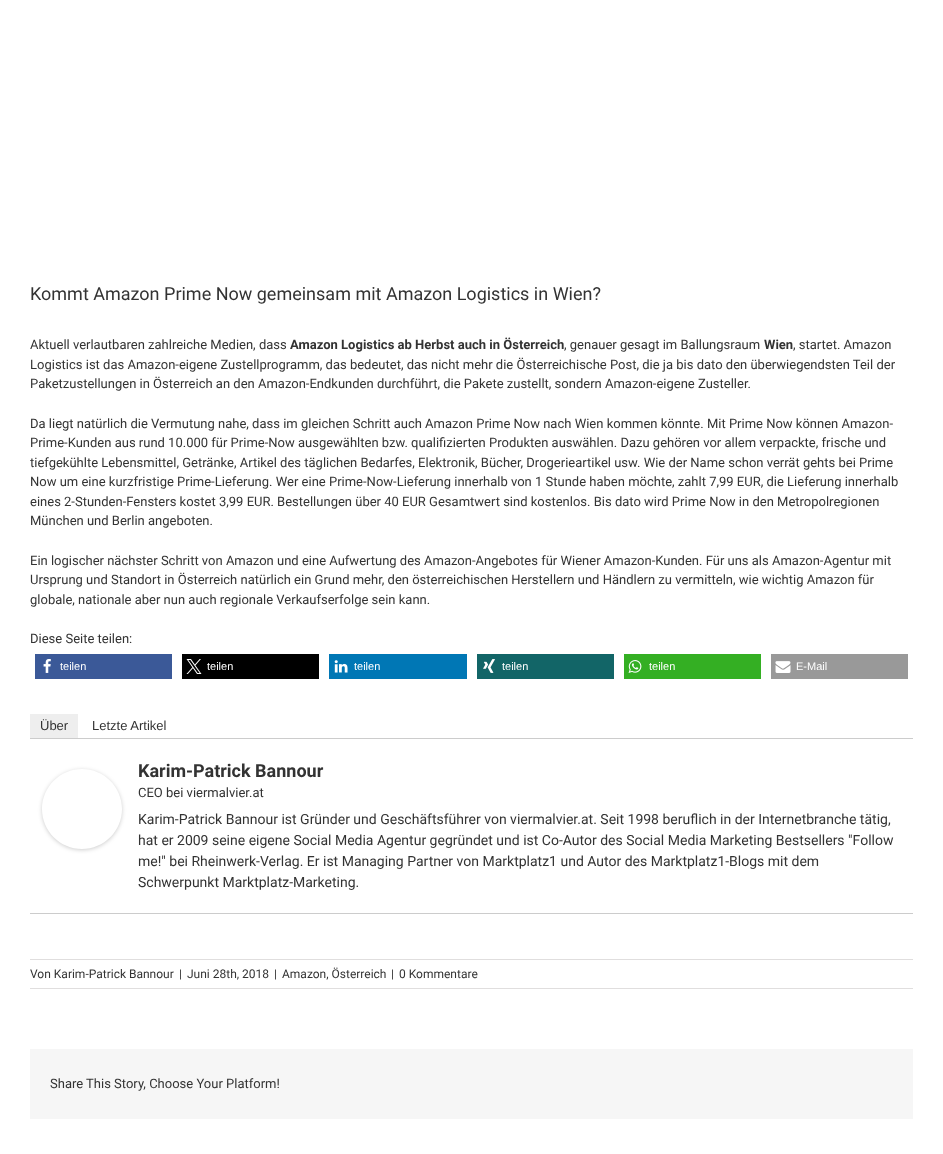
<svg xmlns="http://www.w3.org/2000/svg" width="943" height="1154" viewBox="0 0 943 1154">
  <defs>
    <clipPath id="clip1"><path d="M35 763H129V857H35ZM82 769C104 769 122 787 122 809C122 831 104 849 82 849C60 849 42 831 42 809C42 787 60 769 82 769Z" clip-rule="evenodd"/></clipPath>
    <filter id="blur1" x="-50%" y="-200%" width="200%" height="500%"><feGaussianBlur stdDeviation="2"/></filter>
  </defs>
  <rect width="100%" height="100%" fill="#ffffff"/>
  <text x="30" y="300" font-family="Roboto" font-size="18" fill="#333333">Kommt Amazon Prime Now gemeinsam mit Amazon Logistics in Wien?</text>
  <text x="30" y="349" font-family="Roboto" font-size="13" fill="#333333">Aktuell verlautbaren zahlreiche Medien, dass</text>
  <text x="290" y="349" font-family="Roboto" font-size="13" font-weight="bold" fill="#333333">Amazon Logistics ab Herbst auch in Österreich</text>
  <text x="564" y="349" font-family="Roboto" font-size="13" fill="#333333">, genauer gesagt im Ballungsraum</text>
  <text x="764" y="349" font-family="Roboto" font-size="13" font-weight="bold" fill="#333333">Wien</text>
  <text x="793" y="349" font-family="Roboto" font-size="13" fill="#333333">, startet. Amazon</text>
  <text x="30" y="369" font-family="Roboto" font-size="13" fill="#333333">Logistics ist das Amazon-eigene Zustellprogramm, das bedeutet, das nicht mehr die Österreichische Post, die ja bis dato den überwiegendsten Teil der</text>
  <text x="30" y="388" font-family="Roboto" font-size="13" fill="#333333">Paketzustellungen in Österreich an den Amazon-Endkunden durchführt, die Pakete zustellt, sondern Amazon-eigene Zusteller.</text>
  <text x="30" y="428" font-family="Roboto" font-size="13" fill="#333333">Da liegt natürlich die Vermutung nahe, dass im gleichen Schritt auch Amazon Prime Now nach Wien kommen könnte. Mit Prime Now können Amazon-</text>
  <text x="30" y="447" font-family="Roboto" font-size="13" fill="#333333">Prime-Kunden aus rund 10.000 für Prime-Now ausgewählten bzw. qualifizierten Produkten auswählen. Dazu gehören vor allem verpackte, frische und</text>
  <text x="30" y="467" font-family="Roboto" font-size="13" fill="#333333">tiefgekühlte Lebensmittel, Getränke, Artikel des täglichen Bedarfes, Elektronik, Bücher, Drogerieartikel usw. Wie der Name schon verrät gehts bei Prime</text>
  <text x="30" y="486" font-family="Roboto" font-size="13" fill="#333333">Now um eine kurzfristige Prime-Lieferung. Wer eine Prime-Now-Lieferung innerhalb von 1 Stunde haben möchte, zahlt 7,99 EUR, die Lieferung innerhalb</text>
  <text x="30" y="506" font-family="Roboto" font-size="13" fill="#333333">eines 2-Stunden-Fensters kostet 3,99 EUR. Bestellungen über 40 EUR Gesamtwert sind kostenlos. Bis dato wird Prime Now in den Metropolregionen</text>
  <text x="30" y="525" font-family="Roboto" font-size="13" fill="#333333">München und Berlin angeboten.</text>
  <text x="30" y="565" font-family="Roboto" font-size="13" fill="#333333">Ein logischer nächster Schritt von Amazon und eine Aufwertung des Amazon-Angebotes für Wiener Amazon-Kunden. Für uns als Amazon-Agentur mit</text>
  <text x="30" y="584" font-family="Roboto" font-size="13" fill="#333333">Ursprung und Standort in Österreich natürlich ein Grund mehr, den österreichischen Herstellern und Händlern zu vermitteln, wie wichtig Amazon für</text>
  <text x="30" y="604" font-family="Roboto" font-size="13" fill="#333333">globale, nationale aber nun auch regionale Verkaufserfolge sein kann.</text>
  <text x="30" y="643" font-family="Roboto" font-size="13" fill="#333333">Diese Seite teilen:</text>
  <rect x="35" y="654" width="137" height="25" fill="#3b5998"/>
  <image x="43" y="659" width="8" height="14" href="img1.png"/>
  <text x="60" y="670" font-family="Liberation Sans" font-size="11" fill="#ffffff">teilen</text>
  <rect x="182" y="654" width="137" height="25" fill="#000000"/>
  <image x="186" y="659" width="16" height="15" href="img2.png"/>
  <text x="207" y="670" font-family="Liberation Sans" font-size="11" fill="#ffffff">teilen</text>
  <rect x="329" y="654" width="138" height="25" fill="#0077b5"/>
  <image x="334" y="660" width="14" height="13" href="img3.png"/>
  <text x="354" y="670" font-family="Liberation Sans" font-size="11" fill="#ffffff">teilen</text>
  <rect x="477" y="654" width="137" height="25" fill="#126567"/>
  <image x="483" y="659" width="12" height="14" href="img4.png"/>
  <text x="502" y="670" font-family="Liberation Sans" font-size="11" fill="#ffffff">teilen</text>
  <rect x="624" y="654" width="137" height="25" fill="#34af23"/>
  <image x="628" y="660" width="14" height="13" href="img5.png"/>
  <text x="649" y="670" font-family="Liberation Sans" font-size="11" fill="#ffffff">teilen</text>
  <rect x="771" y="654" width="137" height="25" fill="#999999"/>
  <image x="775" y="661" width="16" height="12" href="img6.png"/>
  <text x="796" y="670" font-family="Liberation Sans" font-size="11" fill="#ffffff">E-Mail</text>
  <rect x="30" y="738" width="883" height="1" fill="#cccccc"/>
  <rect x="30" y="714" width="48" height="24" fill="#eeeeee"/>
  <text x="40" y="730" font-family="Liberation Sans" font-size="13" fill="#333333">Über</text>
  <text x="92" y="730" font-family="Liberation Sans" font-size="13" fill="#333333">Letzte Artikel</text>
  <rect x="30" y="913" width="883" height="1" fill="#cccccc"/>
  <g clip-path="url(#clip1)">
    <rect x="42" y="770" width="80" height="80" rx="40" fill="#000000" fill-opacity="0.2" filter="url(#blur1)"/>
  </g>
  <text x="138" y="777" font-family="Roboto" font-size="18" font-weight="bold" fill="#333333">Karim-Patrick Bannour</text>
  <text x="138" y="797" font-family="Roboto" font-size="13" fill="#333333">CEO bei viermalvier.at</text>
  <text x="138" y="824" font-family="Roboto" font-size="14" fill="#333333">Karim-Patrick Bannour ist Gründer und Geschäftsführer von viermalvier.at. Seit 1998 beruflich in der Internetbranche tätig,</text>
  <text x="138" y="845" font-family="Roboto" font-size="14" fill="#333333">hat er 2009 seine eigene Social Media Agentur gegründet und ist Co-Autor des Social Media Marketing Bestsellers "Follow</text>
  <text x="138" y="866" font-family="Roboto" font-size="14" fill="#333333">me!" bei Rheinwerk-Verlag. Er ist Managing Partner von Marktplatz1 und Autor des Marktplatz1-Blogs mit dem</text>
  <text x="138" y="887" font-family="Roboto" font-size="14" fill="#333333">Schwerpunkt Marktplatz-Marketing.</text>
  <rect x="30" y="959" width="883" height="1" fill="#e0dede"/>
  <rect x="30" y="988" width="883" height="1" fill="#e0dede"/>
  <text x="30" y="978" font-family="Roboto" font-size="12" fill="#333333">Von Karim-Patrick Bannour</text>
  <text x="179" y="978" font-family="Roboto" font-size="12" fill="#333333">|</text>
  <text x="187" y="978" font-family="Roboto" font-size="12" fill="#333333">Juni 28th, 2018</text>
  <text x="274" y="978" font-family="Roboto" font-size="12" fill="#333333">|</text>
  <text x="282" y="978" font-family="Roboto" font-size="12" fill="#333333">Amazon, Österreich</text>
  <text x="391" y="978" font-family="Roboto" font-size="12" fill="#333333">|</text>
  <text x="399" y="978" font-family="Roboto" font-size="12" fill="#333333">0 Kommentare</text>
  <rect x="30" y="1049" width="883" height="70" fill="#f6f6f6"/>
  <text x="50" y="1088" font-family="Roboto" font-size="13" fill="#333333">Share This Story, Choose Your Platform!</text>
</svg>
